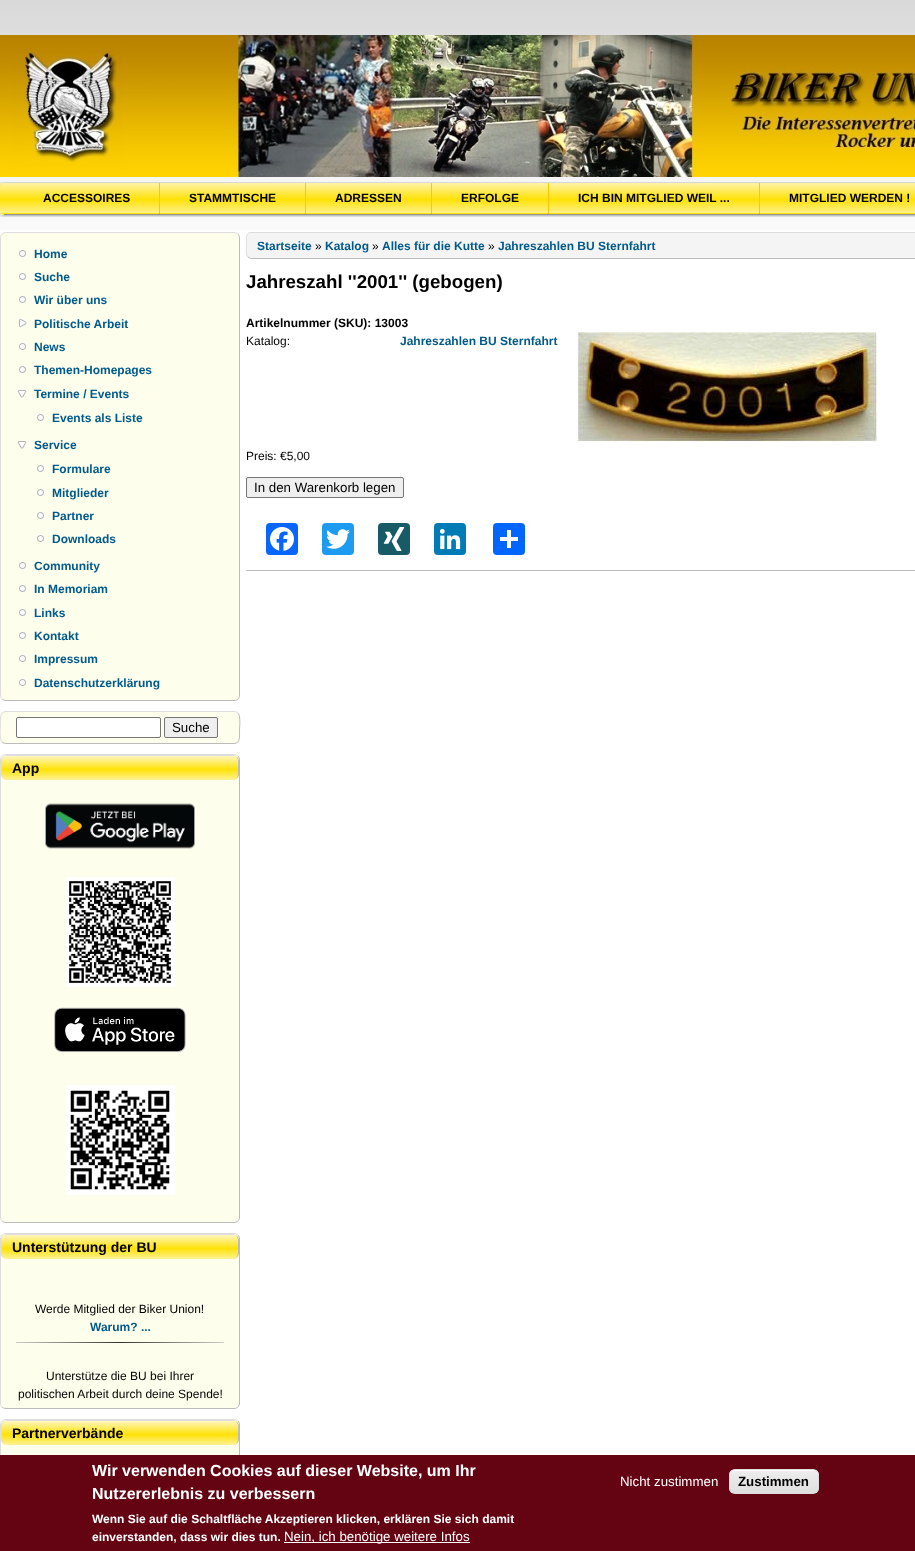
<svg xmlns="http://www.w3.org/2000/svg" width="915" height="1551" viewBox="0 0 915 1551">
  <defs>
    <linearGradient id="g1" gradientUnits="userSpaceOnUse" x1="16" y1="1343" x2="224" y2="1343"><stop offset="0" stop-color="#cccccc"/><stop offset="0.5" stop-color="#333333"/><stop offset="1" stop-color="#cccccc"/></linearGradient>
    <clipPath id="clip1"><rect x="729" y="1469" width="90" height="25" rx="6"/></clipPath>
    <linearGradient id="g2" gradientUnits="userSpaceOnUse" x1="774" y1="1470" x2="774" y2="1493"><stop offset="0.05" stop-color="#ededed"/><stop offset="1" stop-color="#dfdfdf"/></linearGradient>
  </defs>
  <rect width="100%" height="100%" fill="#ffffff"/>
  <image x="0" y="0" width="915" height="230" href="img1.png"/>
  <image x="0" y="35" width="915" height="142" href="img2.png"/>
  <image x="4" y="182" width="911" height="35" href="img3.png"/>
  <image x="0" y="182" width="4" height="35" href="img4.png"/>
  <image x="159" y="183" width="1" height="31" href="img5.png"/>
  <text x="43" y="202" font-family="Liberation Sans" font-size="12" font-weight="bold" fill="#000000">ACCESSOIRES</text>
  <image x="305" y="183" width="1" height="31" href="img5.png"/>
  <text x="189" y="202" font-family="Liberation Sans" font-size="12" font-weight="bold" fill="#000000">STAMMTISCHE</text>
  <image x="431" y="183" width="1" height="31" href="img5.png"/>
  <text x="335" y="202" font-family="Liberation Sans" font-size="12" font-weight="bold" fill="#000000">ADRESSEN</text>
  <image x="548" y="183" width="1" height="31" href="img5.png"/>
  <text x="461" y="202" font-family="Liberation Sans" font-size="12" font-weight="bold" fill="#000000">ERFOLGE</text>
  <image x="759" y="183" width="1" height="31" href="img5.png"/>
  <text x="578" y="202" font-family="Liberation Sans" font-size="12" font-weight="bold" fill="#000000">ICH BIN MITGLIED WEIL ...</text>
  <text x="789" y="202" font-family="Liberation Sans" font-size="12" font-weight="bold" fill="#000000">MITGLIED WERDEN !</text>
  <rect x="0" y="232" width="240" height="469" rx="6" fill="#fefeed"/>
  <path d="M238 234C239 235 239.5 236.5 239.5 238V695C239.5 696.5 239 698 238 699C237 700 235.5 700.5 234 700.5H6C4.5 700.5 3 700 2 699" fill="none" stroke="#bbbbbb"/>
  <path d="M2 699C1 698 .5 696.5 .5 695V238C.5 236.5 1 235 2 234C3 233 4.5 232.5 6 232.5H234C235.5 232.5 237 233 238 234" fill="none" stroke="#dddddd"/>
  <image x="19" y="250" width="7" height="7" href="img6.png"/>
  <text x="34" y="258" font-family="Liberation Sans" font-size="12" font-weight="bold" fill="#005a8c">Home</text>
  <image x="19" y="273" width="7" height="7" href="img6.png"/>
  <text x="34" y="281" font-family="Liberation Sans" font-size="12" font-weight="bold" fill="#005a8c">Suche</text>
  <image x="19" y="296" width="7" height="7" href="img6.png"/>
  <text x="34" y="304" font-family="Liberation Sans" font-size="12" font-weight="bold" fill="#005a8c">Wir über uns</text>
  <image x="19" y="318" width="8" height="10" href="img7.png"/>
  <text x="34" y="328" font-family="Liberation Sans" font-size="12" font-weight="bold" fill="#005a8c">Politische Arbeit</text>
  <image x="19" y="343" width="7" height="7" href="img6.png"/>
  <text x="34" y="351" font-family="Liberation Sans" font-size="12" font-weight="bold" fill="#005a8c">News</text>
  <image x="19" y="366" width="7" height="7" href="img6.png"/>
  <text x="34" y="374" font-family="Liberation Sans" font-size="12" font-weight="bold" fill="#005a8c">Themen-Homepages</text>
  <image x="17" y="390" width="10" height="8" href="img8.png"/>
  <text x="34" y="398" font-family="Liberation Sans" font-size="12" font-weight="bold" fill="#005a8c">Termine / Events</text>
  <image x="37" y="414" width="7" height="7" href="img6.png"/>
  <text x="52" y="422" font-family="Liberation Sans" font-size="12" font-weight="bold" fill="#005a8c">Events als Liste</text>
  <image x="17" y="441" width="10" height="8" href="img8.png"/>
  <text x="34" y="449" font-family="Liberation Sans" font-size="12" font-weight="bold" fill="#005a8c">Service</text>
  <image x="37" y="465" width="7" height="7" href="img6.png"/>
  <text x="52" y="473" font-family="Liberation Sans" font-size="12" font-weight="bold" fill="#005a8c">Formulare</text>
  <image x="37" y="489" width="7" height="7" href="img6.png"/>
  <text x="52" y="497" font-family="Liberation Sans" font-size="12" font-weight="bold" fill="#005a8c">Mitglieder</text>
  <image x="37" y="512" width="7" height="7" href="img6.png"/>
  <text x="52" y="520" font-family="Liberation Sans" font-size="12" font-weight="bold" fill="#005a8c">Partner</text>
  <image x="37" y="535" width="7" height="7" href="img6.png"/>
  <text x="52" y="543" font-family="Liberation Sans" font-size="12" font-weight="bold" fill="#005a8c">Downloads</text>
  <image x="19" y="562" width="7" height="7" href="img6.png"/>
  <text x="34" y="570" font-family="Liberation Sans" font-size="12" font-weight="bold" fill="#005a8c">Community</text>
  <image x="19" y="585" width="7" height="7" href="img6.png"/>
  <text x="34" y="593" font-family="Liberation Sans" font-size="12" font-weight="bold" fill="#005a8c">In Memoriam</text>
  <image x="19" y="609" width="7" height="7" href="img6.png"/>
  <text x="34" y="617" font-family="Liberation Sans" font-size="12" font-weight="bold" fill="#005a8c">Links</text>
  <image x="19" y="632" width="7" height="7" href="img6.png"/>
  <text x="34" y="640" font-family="Liberation Sans" font-size="12" font-weight="bold" fill="#005a8c">Kontakt</text>
  <image x="19" y="655" width="7" height="7" href="img6.png"/>
  <text x="34" y="663" font-family="Liberation Sans" font-size="12" font-weight="bold" fill="#005a8c">Impressum</text>
  <image x="19" y="679" width="7" height="7" href="img6.png"/>
  <text x="34" y="687" font-family="Liberation Sans" font-size="12" font-weight="bold" fill="#005a8c">Datenschutzerklärung</text>
  <rect x="0" y="711" width="240" height="33" rx="6" fill="#fefeed"/>
  <path d="M238 713C241 716 239.5 727 239.5 731C239.5 735.5 240.5 743.5 234 743.5H6L3.5 743L2 742" fill="none" stroke="#bbbbbb"/>
  <path d="M2 742C-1 739 .5 728 .5 724C.5 719.5-.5 711.5 6 711.5H234L236.5 712L238 713" fill="none" stroke="#dddddd"/>
  <rect x="16.5" y="717.5" width="144" height="20" rx="1.5" fill="#ffffff" stroke="#767676"/>
  <rect x="164.5" y="717.5" width="53" height="20" rx="1.5" fill="#efefef" stroke="#767676"/>
  <text x="172" y="732" font-family="Liberation Sans" font-size="13.3" fill="#000000">Suche</text>
  <rect x="0" y="754" width="240" height="469" rx="6" fill="#fefeed"/>
  <path d="M238 756C239 757 239.5 758.5 239.5 760V1217C239.5 1218.5 239 1220 238 1221C237 1222 235.5 1222.5 234 1222.5H6C4.5 1222.5 3 1222 2 1221" fill="none" stroke="#bbbbbb"/>
  <path d="M2 1221C1 1220 .5 1218.5 .5 1217V760C.5 758.5 1 757 2 756C3 755 4.5 754.5 6 754.5H234C235.5 754.5 237 755 238 756" fill="none" stroke="#dddddd"/>
  <image x="1" y="756" width="238" height="24" href="img9.png"/>
  <path d="M7 755C6 755 4 756 3 757L6 756H233C234 756 236 756 237 757C236 756 234 755 233 755Z" fill="#dddddd"/>
  <path d="M239 774V761C239 759.5 238 758 237 757L236.5 757.5C239 759.5 238 764.5 238 767.5C238 771.5 239 780 233 780C236 780 239 777 239 774Z" fill="#bbbbbb"/>
  <path d="M1 761V774C1 777 4 780 7 780C1 780 2 771.5 2 767.5C2 764.5 1 759.5 3.5 757.5L3 757C2 758 1 759.5 1 761Z" fill="#dddddd"/>
  <text x="12" y="773" font-family="Liberation Sans" font-size="14" font-weight="bold" fill="#000000">App</text>
  <image x="45" y="803" width="150" height="46" href="img10.png"/>
  <image x="65" y="877" width="110" height="110" href="img11.png"/>
  <image x="54" y="1007" width="132" height="45" href="img12.png"/>
  <image x="65" y="1085" width="110" height="110" href="img13.png"/>
  <rect x="0" y="1233" width="240" height="176" rx="6" fill="#fefeed"/>
  <path d="M238 1235C239 1236 239.5 1237.5 239.5 1239V1403C239.5 1404.5 239 1406 238 1407C237 1408 235.5 1408.5 234 1408.5H6C4.5 1408.5 3 1408 2 1407" fill="none" stroke="#bbbbbb"/>
  <path d="M2 1407C1 1406 .5 1404.5 .5 1403V1239C.5 1237.5 1 1236 2 1235C3 1234 4.5 1233.5 6 1233.5H234C235.5 1233.5 237 1234 238 1235" fill="none" stroke="#dddddd"/>
  <image x="1" y="1235" width="238" height="24" href="img9.png"/>
  <path d="M7 1234C6 1234 4 1235 3 1236C4 1235 6 1235 7 1235H234L237 1236C236 1235 234 1234 233 1234Z" fill="#dddddd"/>
  <path d="M239 1253V1240C239 1238.5 238 1237 237 1236L236.5 1236.5C239 1238.5 238 1243.5 238 1246.5C238 1250.5 239 1259 233 1259C236 1259 239 1256 239 1253Z" fill="#bbbbbb"/>
  <path d="M1 1240V1253C1 1256 4 1259 7 1259C1 1259 2 1250.5 2 1246.5C2 1243.5 1 1238.5 3.5 1236.5L3 1236C2 1237 1 1238.5 1 1240Z" fill="#dddddd"/>
  <text x="12" y="1252" font-family="Liberation Sans" font-size="14" font-weight="bold" fill="#000000">Unterstützung der BU</text>
  <text x="35" y="1313" font-family="Liberation Sans" font-size="12" fill="#000000">Werde Mitglied der Biker Union!</text>
  <text x="90" y="1331" font-family="Liberation Sans" font-size="12" font-weight="bold" fill="#005a8c">Warum? ...</text>
  <rect x="16" y="1342" width="208" height="1" fill="url(#g1)"/>
  <text x="46" y="1380" font-family="Liberation Sans" font-size="12" fill="#000000">Unterstütze die BU bei Ihrer</text>
  <text x="18" y="1398" font-family="Liberation Sans" font-size="12" fill="#000000">politischen Arbeit durch deine Spende!</text>
  <rect x="0" y="1419" width="240" height="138" rx="6" fill="#fefeed"/>
  <path d="M238 1421C239 1422 239.5 1423.5 239.5 1425V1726C239.5 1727.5 239 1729 238 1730C237 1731 235.5 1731.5 234 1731.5H6C4.5 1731.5 3 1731 2 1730" fill="none" stroke="#bbbbbb"/>
  <path d="M2 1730C1 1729 .5 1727.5 .5 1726V1425C.5 1423.5 1 1422 2 1421C3 1420 4.5 1419.5 6 1419.5H234C235.5 1419.5 237 1420 238 1421" fill="none" stroke="#dddddd"/>
  <image x="1" y="1421" width="238" height="24" href="img9.png"/>
  <path d="M7 1420C6 1420 4 1421 3 1422L6 1421H233C234 1421 236 1421 237 1422C236 1421 234 1420 233 1420Z" fill="#dddddd"/>
  <path d="M239 1439V1426C239 1424.5 238 1423 237 1422L236.5 1422.5C239 1424.5 238 1429.5 238 1432.5C238 1436.5 239 1445 233 1445C236 1445 239 1442 239 1439Z" fill="#bbbbbb"/>
  <path d="M1 1426V1439C1 1442 4 1445 7 1445C1 1445 2 1436.5 2 1432.5C2 1429.5 1 1424.5 3.5 1422.5L3 1422C2 1423 1 1424.5 1 1426Z" fill="#dddddd"/>
  <text x="12" y="1438" font-family="Liberation Sans" font-size="14" font-weight="bold" fill="#000000">Partnerverbände</text>
  <rect x="246" y="232" width="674" height="27" rx="5" fill="#f4f4f4"/>
  <path d="M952 234C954.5 236.5 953.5 242.5 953.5 245.5C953.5 248.5 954.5 254 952.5 257C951.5 258 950.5 258.5 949 258.5H250.5L248 257" fill="none" stroke="#bbbbbb"/>
  <path d="M248 257C245.5 254.5 246.5 248.5 246.5 245.5C246.5 242.5 245.5 237 247.5 234C248.5 233 249.5 232.5 251 232.5H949.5L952 234" fill="none" stroke="#dddddd"/>
  <text x="257" y="250" font-family="Liberation Sans" font-size="12" font-weight="bold" fill="#005a8c">Startseite</text>
  <text x="315" y="250" font-family="Liberation Sans" font-size="12" fill="#000000">»</text>
  <text x="325" y="250" font-family="Liberation Sans" font-size="12" font-weight="bold" fill="#005a8c">Katalog</text>
  <text x="372" y="250" font-family="Liberation Sans" font-size="12" fill="#000000">»</text>
  <text x="382" y="250" font-family="Liberation Sans" font-size="12" font-weight="bold" fill="#005a8c">Alles für die Kutte</text>
  <text x="488" y="250" font-family="Liberation Sans" font-size="12" fill="#000000">»</text>
  <text x="498" y="250" font-family="Liberation Sans" font-size="12" font-weight="bold" fill="#005a8c">Jahreszahlen BU Sternfahrt</text>
  <text x="246" y="288" font-family="Liberation Sans" font-size="18.7" font-weight="bold" fill="#000000">Jahreszahl ''2001'' (gebogen)</text>
  <rect x="246" y="570" width="669" height="1" fill="#bbbbbb"/>
  <text x="246" y="327" font-family="Liberation Sans" font-size="12" font-weight="bold" fill="#000000">Artikelnummer (SKU): 13003</text>
  <text x="246" y="345" font-family="Liberation Sans" font-size="12" fill="#000000">Katalog:</text>
  <text x="400" y="345" font-family="Liberation Sans" font-size="12" font-weight="bold" fill="#005a8c">Jahreszahlen BU Sternfahrt</text>
  <image x="577" y="332" width="300" height="110" href="img14.png"/>
  <text x="246" y="460" font-family="Liberation Sans" font-size="12" fill="#000000">Preis: €5,00</text>
  <rect x="246.5" y="477.5" width="157" height="20" rx="1.5" fill="#efefef" stroke="#767676"/>
  <text x="254" y="492" font-family="Liberation Sans" font-size="13.3" fill="#000000">In den Warenkorb legen</text>
  <rect x="266" y="523" width="32" height="32" rx="4" fill="#0866ff"/>
  <image x="270" y="527" width="24" height="24" href="img15.png"/>
  <rect x="322" y="523" width="32" height="32" rx="4" fill="#1d9bf0"/>
  <image x="326" y="529" width="24" height="20" href="img16.png"/>
  <rect x="378" y="523" width="32" height="32" rx="4" fill="#165b66"/>
  <image x="383" y="527" width="22" height="24" href="img17.png"/>
  <rect x="434" y="523" width="32" height="32" rx="4" fill="#007bb5"/>
  <image x="439" y="528" width="22" height="22" href="img18.png"/>
  <rect x="493" y="523" width="32" height="32" rx="4" fill="#0166ff"/>
  <rect x="507" y="530" width="4" height="18" fill="#ffffff"/>
  <rect x="500" y="537" width="18" height="4" fill="#ffffff"/>
  <rect x="0" y="1455" width="915" height="96" fill="#640312"/>
  <text x="92" y="1476" font-family="Liberation Sans" font-size="16" font-weight="bold" fill="#ffffff">Wir verwenden Cookies auf dieser Website, um Ihr</text>
  <text x="92" y="1499" font-family="Liberation Sans" font-size="16" font-weight="bold" fill="#ffffff">Nutzererlebnis zu verbessern</text>
  <text x="92" y="1523" font-family="Liberation Sans" font-size="12" font-weight="bold" fill="#ffffff">Wenn Sie auf die Schaltfläche Akzeptieren klicken, erklären Sie sich damit</text>
  <text x="92" y="1541" font-family="Liberation Sans" font-size="12" font-weight="bold" fill="#ffffff">einverstanden, dass wir dies tun.</text>
  <rect x="284" y="1542" width="186" height="1" fill="#ffffff"/>
  <text x="284" y="1541" font-family="Liberation Sans" font-size="13.3" fill="#ffffff">Nein, ich benötige weitere Infos</text>
  <text x="620" y="1486" font-family="Liberation Sans" font-size="13.3" fill="#ffffff">Nicht zustimmen</text>
  <g clip-path="url(#clip1)">
    <rect x="729" y="1470" width="90" height="23" fill="url(#g2)"/>
  </g>
  <path d="M735 1471H813C816 1471 818 1473 818 1476C818 1467 806 1470 800 1470H748C742 1470 730 1467 730 1476C730 1473 732 1471 735 1471Z" fill="#ffffff"/>
  <rect x="729.5" y="1469.5" width="89" height="24" rx="5.5" fill="none" stroke="#dcdcdc"/>
  <text x="738" y="1486" font-family="Liberation Sans" font-size="13.3" font-weight="bold" fill="#000000">Zustimmen</text>
</svg>
